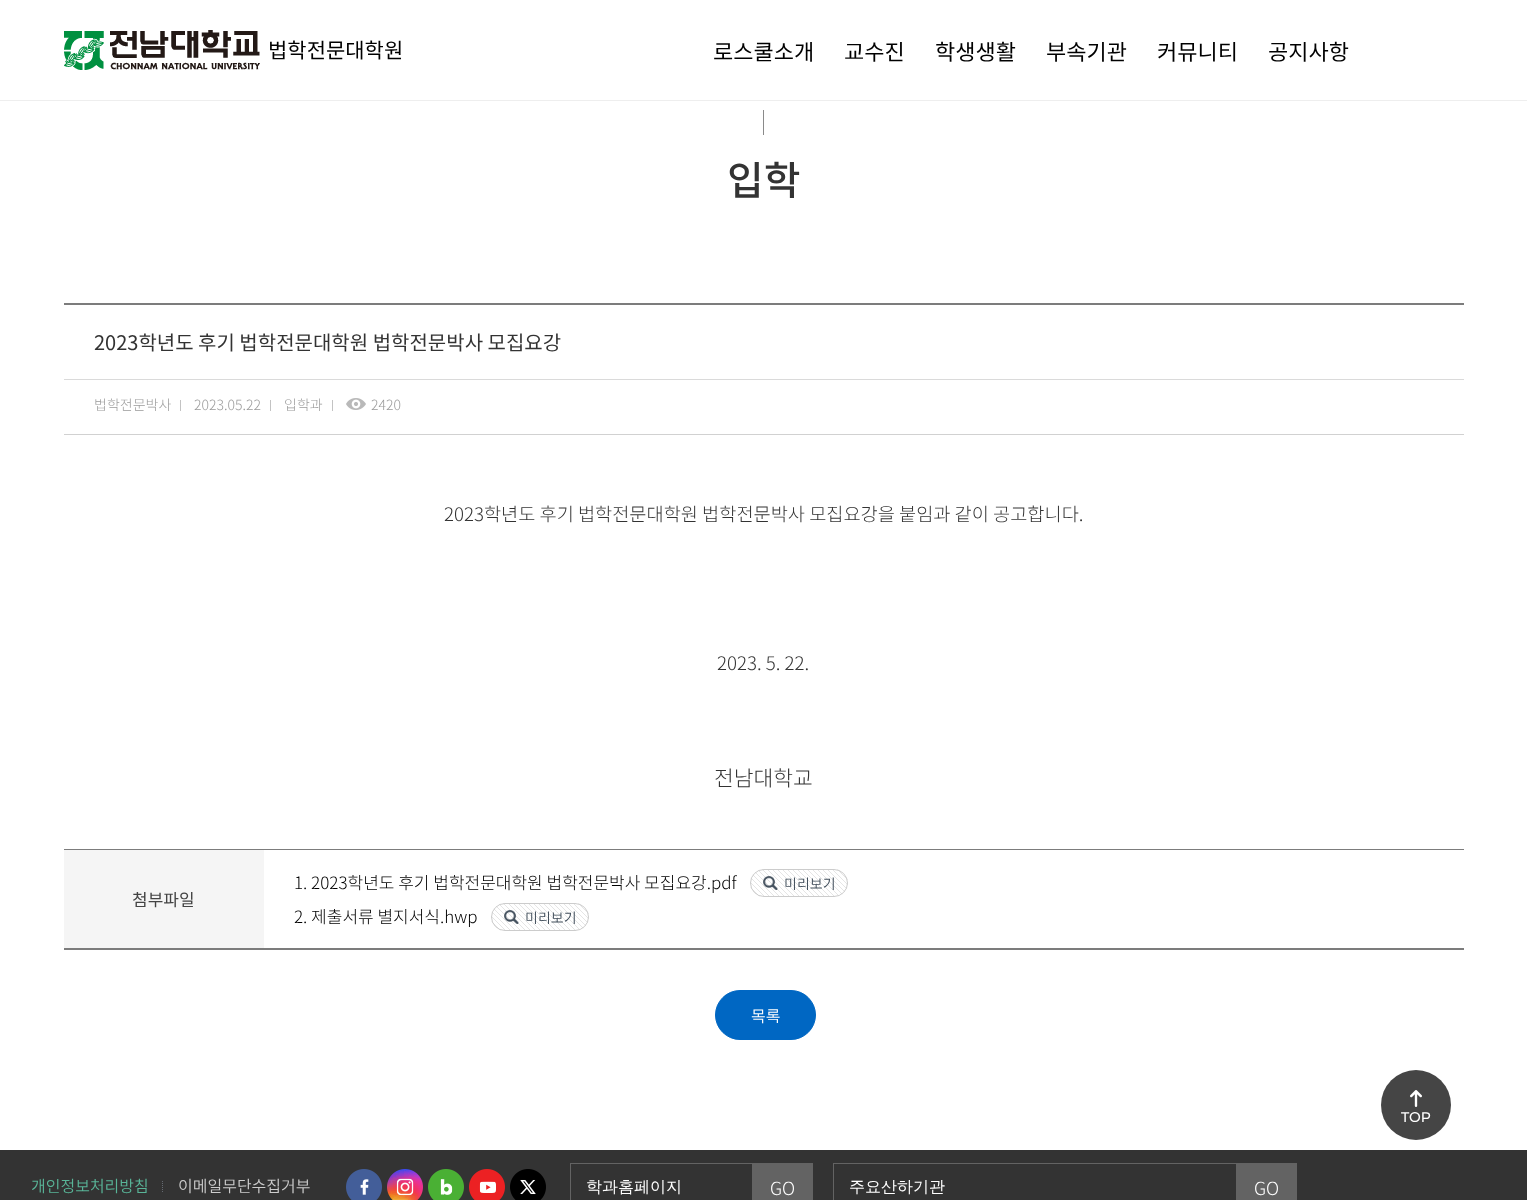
<svg xmlns="http://www.w3.org/2000/svg" width="1527" height="1200" viewBox="0 0 1527 1200">
  <rect width="100%" height="100%" fill="#ffffff"/>
  <rect x="0" y="100" width="1527" height="1" fill="#eeeeee"/>
  <image x="64" y="30" width="196" height="40" href="img1.png"/>
  <text x="268" y="58" font-family="Noto Sans KR" font-size="21" fill="#000000">법학전문대학원</text>
  <text x="713" y="60" font-family="Noto Sans KR" font-size="22" fill="#000000">로스쿨소개</text>
  <text x="844" y="60" font-family="Noto Sans KR" font-size="22" fill="#000000">교수진</text>
  <text x="935" y="60" font-family="Noto Sans KR" font-size="22" fill="#000000">학생생활</text>
  <text x="1046" y="60" font-family="Noto Sans KR" font-size="22" fill="#000000">부속기관</text>
  <text x="1157" y="60" font-family="Noto Sans KR" font-size="22" fill="#000000">커뮤니티</text>
  <text x="1268" y="60" font-family="Noto Sans KR" font-size="22" fill="#000000">공지사항</text>
  <rect x="763" y="110" width="1" height="25" fill="#8a8a8a"/>
  <text x="727" y="195" font-family="Noto Sans KR" font-size="40" font-weight="500" fill="#333333">입학</text>
  <rect x="64" y="303" width="1400" height="2" fill="#7c7c7c"/>
  <rect x="64" y="379" width="1400" height="1" fill="#dadada"/>
  <text x="94" y="350" font-family="Noto Sans KR" font-size="20" fill="#333333">2023학년도 후기 법학전문대학원 법학전문박사 모집요강</text>
  <rect x="64" y="434" width="1400" height="1" fill="#d1d1d1"/>
  <text x="94" y="410" font-family="Noto Sans KR" font-size="14" font-weight="300" fill="#9b9b9b">법학전문박사</text>
  <rect x="180" y="400" width="1" height="11" fill="#c3c3c3"/>
  <text x="194" y="410" font-family="Noto Sans KR" font-size="14" font-weight="300" fill="#9b9b9b">2023.05.22</text>
  <rect x="270" y="400" width="1" height="11" fill="#c3c3c3"/>
  <text x="284" y="410" font-family="Noto Sans KR" font-size="14" font-weight="300" fill="#9b9b9b">입학과</text>
  <rect x="332" y="400" width="1" height="11" fill="#c3c3c3"/>
  <image x="346" y="398" width="20" height="12" href="img2.png"/>
  <text x="371" y="410" font-family="Noto Sans KR" font-size="14" font-weight="300" fill="#9b9b9b">2420</text>
  <text x="444" y="521" font-family="Noto Sans KR" font-size="18.65" font-weight="300" fill="#333333">2023학년도 후기 법학전문대학원 법학전문박사 모집요강을 붙임과 같이 공고합니다.</text>
  <text x="717" y="670" font-family="Noto Sans KR" font-size="18.65" font-weight="300" fill="#333333">2023. 5. 22.</text>
  <text x="714" y="786" font-family="Noto Sans KR" font-size="21.5" font-weight="300" fill="#333333">전남대학교</text>
  <rect x="64" y="849" width="1400" height="1" fill="#7c7c7c"/>
  <rect x="64" y="948" width="1400" height="2" fill="#7c7c7c"/>
  <rect x="64" y="850" width="200" height="98" fill="#f5f5f5"/>
  <text x="132" y="906" font-family="Noto Sans KR" font-size="17" fill="#444444">첨부파일</text>
  <text x="294" y="889" font-family="Noto Sans KR" font-size="17" font-weight="300" fill="#000000">1. 2023학년도 후기 법학전문대학원 법학전문박사 모집요강.pdf</text>
  <image x="750" y="869" width="98" height="28" href="img3.png"/>
  <rect x="750.5" y="869.5" width="97" height="27" rx="13.5" fill="none" stroke="#cccccc"/>
  <image x="763" y="876" width="15" height="14" href="img4.png"/>
  <text x="784" y="889" font-family="'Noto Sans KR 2'" font-size="14" font-weight="300" fill="#43505d">미리보기</text>
  <text x="294" y="923" font-family="Noto Sans KR" font-size="17" font-weight="300" fill="#000000">2. 제출서류 별지서식.hwp</text>
  <image x="491" y="903" width="98" height="28" href="img5.png"/>
  <rect x="491.5" y="903.5" width="97" height="27" rx="13.5" fill="none" stroke="#cccccc"/>
  <image x="504" y="910" width="15" height="14" href="img6.png"/>
  <text x="525" y="923" font-family="'Noto Sans KR 2'" font-size="14" font-weight="300" fill="#43505d">미리보기</text>
  <rect x="715.5" y="990.5" width="100" height="49" rx="24.5" fill="#0067c3" stroke="#0067c3"/>
  <text x="751" y="1022" font-family="'Noto Sans KR 2'" font-size="16" font-weight="300" fill="#ffffff">목록</text>
  <circle cx="1416" cy="1105" r="35" fill="#454545"/>
  <image x="1410" y="1090" width="12" height="17" href="img7.png"/>
  <text x="1401" y="1122" font-family="Montserrat" font-size="14" font-weight="500" fill="#ffffff">TOP</text>
  <rect x="0" y="1150" width="1527" height="50" fill="#333333"/>
  <text x="31" y="1192" font-family="'Noto Sans KR 2'" font-size="16" font-weight="300" fill="#59b598">개인정보처리방침</text>
  <path d="M162.5 1181V1192" fill="none" stroke="#656a72" stroke-dasharray="1 1"/>
  <text x="178" y="1192" font-family="'Noto Sans KR 2'" font-size="16" font-weight="300" fill="#cccccc">이메일무단수집거부</text>
  <image x="346" y="1169" width="36" height="31" href="img8.png"/>
  <image x="387" y="1169" width="36" height="31" href="img9.png"/>
  <image x="428" y="1169" width="36" height="31" href="img10.png"/>
  <image x="469" y="1169" width="36" height="31" href="img11.png"/>
  <image x="510" y="1169" width="36" height="31" href="img12.png"/>
  <rect x="570.5" y="1163.5" width="182" height="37" fill="none" stroke="#636363"/>
  <text x="586" y="1192" font-family="WenQuanYi Zen Hei" font-size="16" font-weight="500" fill="#ffffff">학과홈페이지</text>
  <rect x="753" y="1163" width="60" height="37" fill="#636363"/>
  <text x="770" y="1195" font-family="Noto Sans KR" font-size="18" font-weight="300" fill="#ffffff">GO</text>
  <rect x="833.5" y="1163.5" width="403" height="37" fill="none" stroke="#636363"/>
  <text x="849" y="1192" font-family="WenQuanYi Zen Hei" font-size="16" font-weight="500" fill="#ffffff">주요산하기관</text>
  <rect x="1237" y="1163" width="60" height="37" fill="#636363"/>
  <text x="1254" y="1195" font-family="Noto Sans KR" font-size="18" font-weight="300" fill="#ffffff">GO</text>
</svg>
